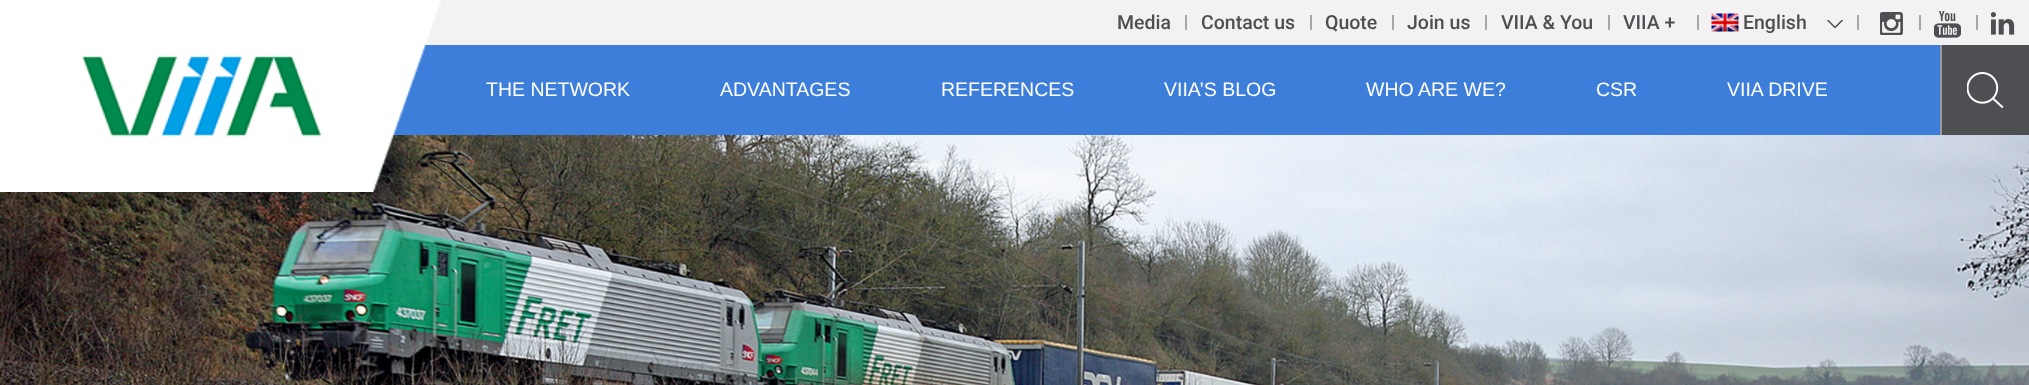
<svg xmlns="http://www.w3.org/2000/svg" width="2029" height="385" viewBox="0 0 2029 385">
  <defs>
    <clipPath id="clip1"><rect x="1827" y="20" width="17" height="9"/></clipPath>
  </defs>
  <rect width="100%" height="100%" fill="#ffffff"/>
  <rect x="424" y="0" width="1605" height="45" fill="#f2f2f2"/>
  <text x="1117" y="29" font-family="Roboto" font-size="19.5" font-weight="500" fill="#4d4f53">Media</text>
  <rect x="1185" y="15" width="2" height="15" fill="#a6a7a9"/>
  <text x="1201" y="29" font-family="Roboto" font-size="19.5" font-weight="500" fill="#4d4f53">Contact us</text>
  <rect x="1310" y="15" width="2" height="15" fill="#a6a7a9"/>
  <text x="1325" y="29" font-family="Roboto" font-size="19.5" font-weight="500" fill="#4d4f53">Quote</text>
  <rect x="1392" y="15" width="2" height="15" fill="#a6a7a9"/>
  <text x="1407" y="29" font-family="Roboto" font-size="19.5" font-weight="500" fill="#4d4f53">Join us</text>
  <rect x="1485" y="15" width="2" height="15" fill="#a6a7a9"/>
  <text x="1501" y="29" font-family="Roboto" font-size="19.5" font-weight="500" fill="#4d4f53">VIIA &amp; You</text>
  <rect x="1608" y="15" width="2" height="15" fill="#a6a7a9"/>
  <text x="1623" y="29" font-family="Roboto" font-size="19.5" font-weight="500" fill="#4d4f53">VIIA +</text>
  <rect x="1697" y="15" width="2" height="15" fill="#a6a7a9"/>
  <image x="1711" y="13" width="28" height="19" href="img1.png"/>
  <text x="1743" y="29" font-family="Roboto" font-size="19.5" font-weight="500" fill="#4d4f53">English</text>
  <g clip-path="url(#clip1)">
    <path d="M1842.5 20L1835 27.5L1827.5 20" fill="none" stroke="#4d4f53" stroke-width="1.5"/>
  </g>
  <rect x="1857" y="15" width="2" height="15" fill="#a6a7a9"/>
  <image x="1880" y="12" width="23" height="23" href="img2.png"/>
  <rect x="1919" y="15" width="2" height="15" fill="#a6a7a9"/>
  <image x="1934" y="11" width="27" height="27" href="img3.png"/>
  <rect x="1976" y="15" width="2" height="15" fill="#a6a7a9"/>
  <image x="1991" y="12" width="24" height="23" href="img4.png"/>
  <rect x="392" y="45" width="1548" height="90" fill="#3d7edb"/>
  <image x="0" y="135" width="2029" height="250" href="img7.png"/>
  <image x="0" y="0" width="441" height="192" href="img5.png"/>
  <text x="486" y="96" font-family="Liberation Sans" font-size="19.5" fill="#ffffff">THE NETWORK</text>
  <text x="720" y="96" font-family="Liberation Sans" font-size="19.5" fill="#ffffff">ADVANTAGES</text>
  <text x="941" y="96" font-family="Liberation Sans" font-size="19.5" fill="#ffffff">REFERENCES</text>
  <text x="1164" y="96" font-family="Liberation Sans" font-size="19.5" fill="#ffffff">VIIA’S BLOG</text>
  <text x="1366" y="96" font-family="Liberation Sans" font-size="19.5" fill="#ffffff">WHO ARE WE?</text>
  <text x="1596" y="96" font-family="Liberation Sans" font-size="19.5" fill="#ffffff">CSR</text>
  <text x="1727" y="96" font-family="Liberation Sans" font-size="19.5" fill="#ffffff">VIIA DRIVE</text>
  <rect x="1942" y="45" width="87" height="90" fill="#4d4f53"/>
  <rect x="1940" y="45" width="2" height="90" fill="#999999"/>
  <image x="1967" y="72" width="37" height="36" href="img6.png"/>
</svg>
